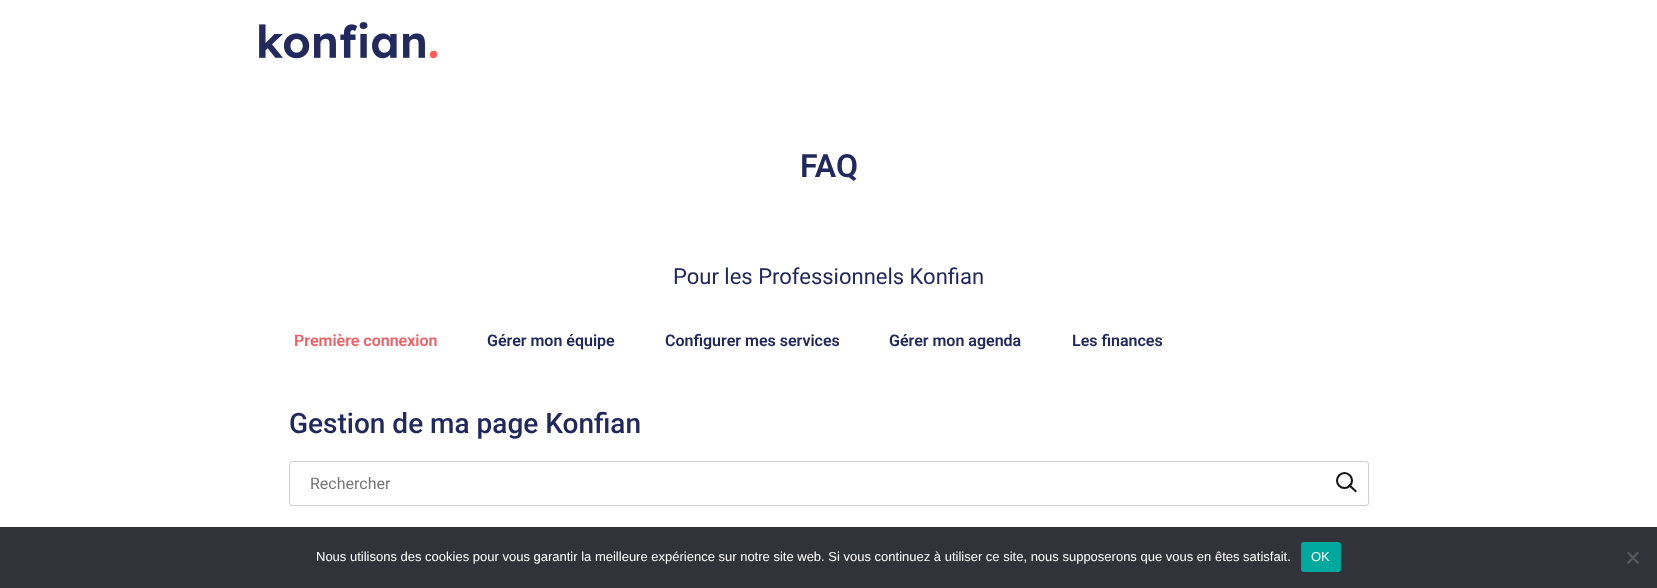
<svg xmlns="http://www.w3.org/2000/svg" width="1657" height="588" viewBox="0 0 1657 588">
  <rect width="100%" height="100%" fill="#ffffff"/>
  <image x="259" y="22" width="179" height="37" href="img1.png"/>
  <text x="800" y="177" font-family="Roboto" font-size="32" font-weight="600" fill="#20285e">FAQ</text>
  <text x="673" y="284" font-family="Roboto" font-size="22" fill="#20285e">Pour les Professionnels Konfian</text>
  <text x="294" y="346" font-family="Roboto" font-size="16" font-weight="600" fill="#f15e65">Première connexion</text>
  <text x="487" y="346" font-family="Roboto" font-size="16" font-weight="600" fill="#20285e">Gérer mon équipe</text>
  <text x="665" y="346" font-family="Roboto" font-size="16" font-weight="600" fill="#20285e">Configurer mes services</text>
  <text x="889" y="346" font-family="Roboto" font-size="16" font-weight="600" fill="#20285e">Gérer mon agenda</text>
  <text x="1072" y="346" font-family="Roboto" font-size="16" font-weight="600" fill="#20285e">Les finances</text>
  <text x="289" y="433" font-family="Roboto" font-size="28" font-weight="500" fill="#20285e">Gestion de ma page Konfian</text>
  <rect x="289.5" y="461.5" width="1079" height="44" rx="2.5" fill="none" stroke="#d0cfce"/>
  <text x="310" y="489" font-family="Roboto" font-size="16" fill="#757575">Rechercher</text>
  <path d="M1355.5 491L1349.5 485.5" fill="none" stroke="#171717" stroke-width="2.1" stroke-linecap="square"/>
  <circle cx="1344.5" cy="480.5" r="7.5" fill="none" stroke="#171717" stroke-width="2.1"/>
  <rect x="0" y="527" width="1657" height="61" fill="#32323a"/>
  <text x="316" y="561" font-family="Liberation Sans" font-size="13" fill="#ffffff">Nous utilisons des cookies pour vous garantir la meilleure expérience sur notre site web. Si vous continuez à utiliser ce site, nous supposerons que vous en êtes satisfait.</text>
  <rect x="1301" y="542" width="40" height="30" rx="3" fill="#00a99d"/>
  <text x="1311" y="561" font-family="Liberation Sans" font-size="13" fill="#ffffff">OK</text>
  <path d="M1637.5 551.5L1639 553L1628.5 564L1627 562.5Z" fill="#59595d"/>
  <path d="M1627 553L1628.5 551.5L1639 562.5L1637.5 564Z" fill="#59595d"/>
</svg>
